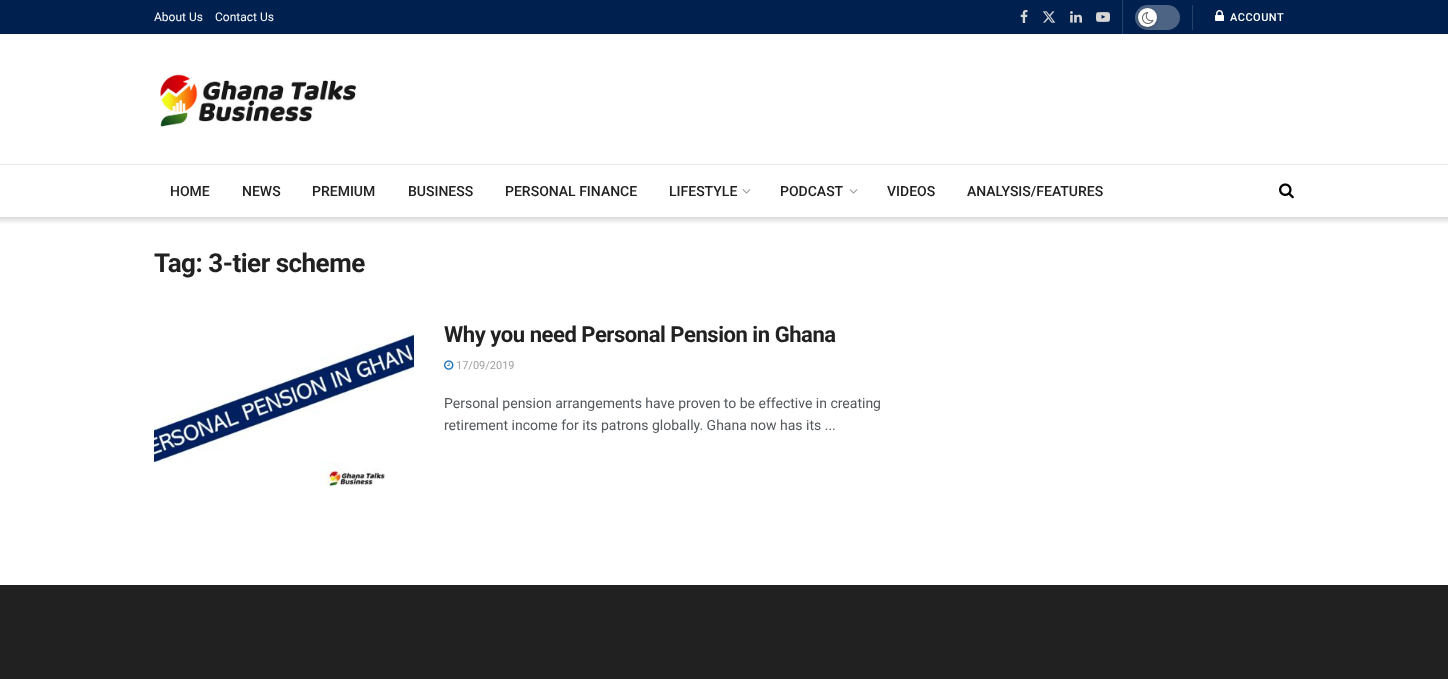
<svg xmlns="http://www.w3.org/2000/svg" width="1448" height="679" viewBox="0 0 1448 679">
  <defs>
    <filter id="blur1" x="-50%" y="-200%" width="200%" height="500%"><feGaussianBlur stdDeviation="1.5"/></filter>
    <linearGradient id="g1" gradientUnits="userSpaceOnUse" x1="724" y1="217" x2="724" y2="224"><stop offset="0" stop-color="#d9d9d9"/><stop offset="1" stop-color="#ffffff"/></linearGradient>
  </defs>
  <rect width="100%" height="100%" fill="#ffffff"/>
  <rect x="0" y="0" width="1448" height="34" fill="#00214f"/>
  <rect x="1122" y="0" width="1" height="34" fill="#264269"/>
  <text x="154" y="21" font-family="Roboto" font-size="12" fill="#ffffff">About Us</text>
  <text x="215" y="21" font-family="Roboto" font-size="12" fill="#ffffff">Contact Us</text>
  <image x="1020" y="10" width="8" height="13" href="img1.png"/>
  <image x="1042" y="11" width="14" height="12" href="img2.png"/>
  <image x="1070" y="11" width="12" height="12" href="img3.png"/>
  <image x="1096" y="12" width="14" height="10" href="img4.png"/>
  <rect x="1192" y="5" width="1" height="25" fill="#264269"/>
  <rect x="1135" y="5" width="45" height="25" rx="12.5" fill="#4d6484"/>
  <rect x="1138" y="9" width="19" height="19" rx="9.5" fill="#000000" fill-opacity="0.3" filter="url(#blur1)"/>
  <circle cx="1147.5" cy="17.5" r="9.5" fill="#ffffff"/>
  <image x="1142" y="12" width="12" height="12" href="img5.png"/>
  <image x="1215" y="10" width="9" height="11" href="img6.png"/>
  <text x="1230" y="21" font-family="Roboto" font-size="11" font-weight="500" letter-spacing="0.5" fill="#ffffff">ACCOUNT</text>
  <image x="160" y="73" width="197" height="55" href="img7.png"/>
  <rect x="0" y="164" width="1448" height="1" fill="#e8e8e8"/>
  <text x="170" y="196" font-family="Roboto" font-size="14" font-weight="500" fill="#212121">HOME</text>
  <text x="242" y="196" font-family="Roboto" font-size="14" font-weight="500" fill="#212121">NEWS</text>
  <text x="312" y="196" font-family="Roboto" font-size="14" font-weight="500" fill="#212121">PREMIUM</text>
  <text x="408" y="196" font-family="Roboto" font-size="14" font-weight="500" fill="#212121">BUSINESS</text>
  <text x="505" y="196" font-family="Roboto" font-size="14" font-weight="500" fill="#212121">PERSONAL FINANCE</text>
  <text x="669" y="196" font-family="Roboto" font-size="14" font-weight="500" fill="#212121">LIFESTYLE</text>
  <image x="742" y="189" width="9" height="5" href="img8.png"/>
  <text x="780" y="196" font-family="Roboto" font-size="14" font-weight="500" fill="#212121">PODCAST</text>
  <image x="849" y="189" width="9" height="5" href="img8.png"/>
  <text x="887" y="196" font-family="Roboto" font-size="14" font-weight="500" fill="#212121">VIDEOS</text>
  <text x="967" y="196" font-family="Roboto" font-size="14" font-weight="500" fill="#212121">ANALYSIS/FEATURES</text>
  <image x="1279" y="183" width="15" height="16" href="img9.png"/>
  <rect x="0" y="217" width="1448" height="7" fill="url(#g1)"/>
  <text x="154" y="272" font-family="Roboto" font-size="26" font-weight="bold" letter-spacing="-0.5" fill="#212121">Tag: 3-tier scheme</text>
  <image x="154" y="320" width="260" height="185" href="img10.png"/>
  <text x="444" y="342" font-family="Roboto" font-size="22" font-weight="bold" letter-spacing="-0.45" fill="#212121">Why you need Personal Pension in Ghana</text>
  <image x="444" y="360" width="10" height="10" href="img11.png"/>
  <text x="456" y="369" font-family="Roboto" font-size="11" fill="#a0a0a0">17/09/2019</text>
  <text x="444" y="408" font-family="Roboto" font-size="14" fill="#53585c">Personal pension arrangements have proven to be effective in creating</text>
  <text x="444" y="430" font-family="Roboto" font-size="14" fill="#53585c">retirement income for its patrons globally. Ghana now has its ...</text>
  <rect x="0" y="585" width="1448" height="94" fill="#212121"/>
</svg>
